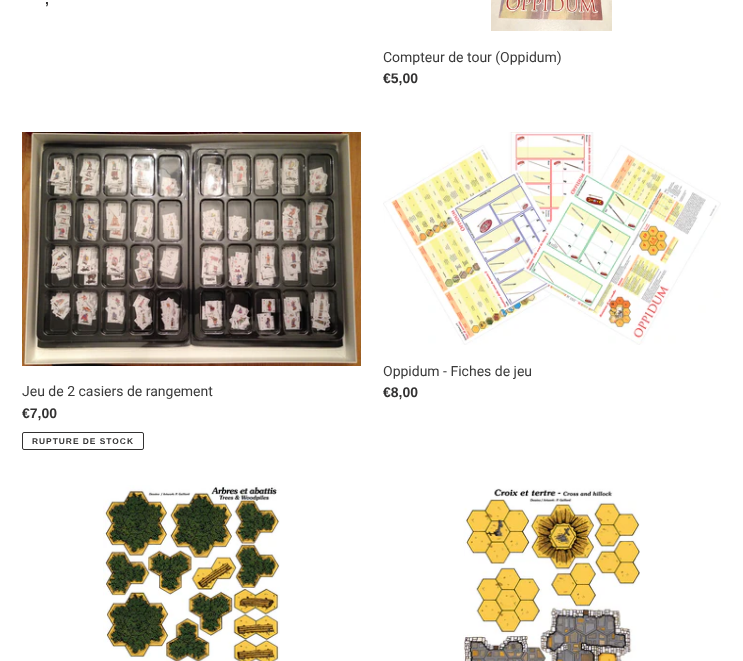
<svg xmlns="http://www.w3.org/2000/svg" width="743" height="661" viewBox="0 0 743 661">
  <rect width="100%" height="100%" fill="#ffffff"/>
  <text x="45" y="4" font-family="Liberation Sans" font-size="14" font-weight="bold" fill="#333232">,</text>
  <image x="491" y="0" width="121" height="31" href="img1.png"/>
  <text x="383" y="62" font-family="Roboto" font-size="14" fill="#3a3a3a">Compteur de tour (Oppidum)</text>
  <text x="383" y="83" font-family="Liberation Sans" font-size="14" font-weight="bold" fill="#333232">€5,00</text>
  <image x="22" y="132" width="339" height="234" href="img2.png"/>
  <text x="22" y="396" font-family="Roboto" font-size="14" fill="#3a3a3a">Jeu de 2 casiers de rangement</text>
  <text x="22" y="418" font-family="Liberation Sans" font-size="14" font-weight="bold" fill="#333232">€7,00</text>
  <rect x="22.5" y="432.5" width="121" height="17" rx="1.5" fill="none" stroke="#333232"/>
  <text x="32" y="444" font-family="Liberation Sans" font-size="8.4" font-weight="bold" letter-spacing="1" fill="#333232">RUPTURE DE STOCK</text>
  <image x="383" y="132" width="338" height="213" href="img3.png"/>
  <text x="383" y="376" font-family="Roboto" font-size="14" fill="#3a3a3a">Oppidum - Fiches de jeu</text>
  <text x="383" y="397" font-family="Liberation Sans" font-size="14" font-weight="bold" fill="#333232">€8,00</text>
  <image x="103" y="485" width="177" height="176" href="img4.png"/>
  <image x="463" y="488" width="177" height="173" href="img5.png"/>
</svg>
